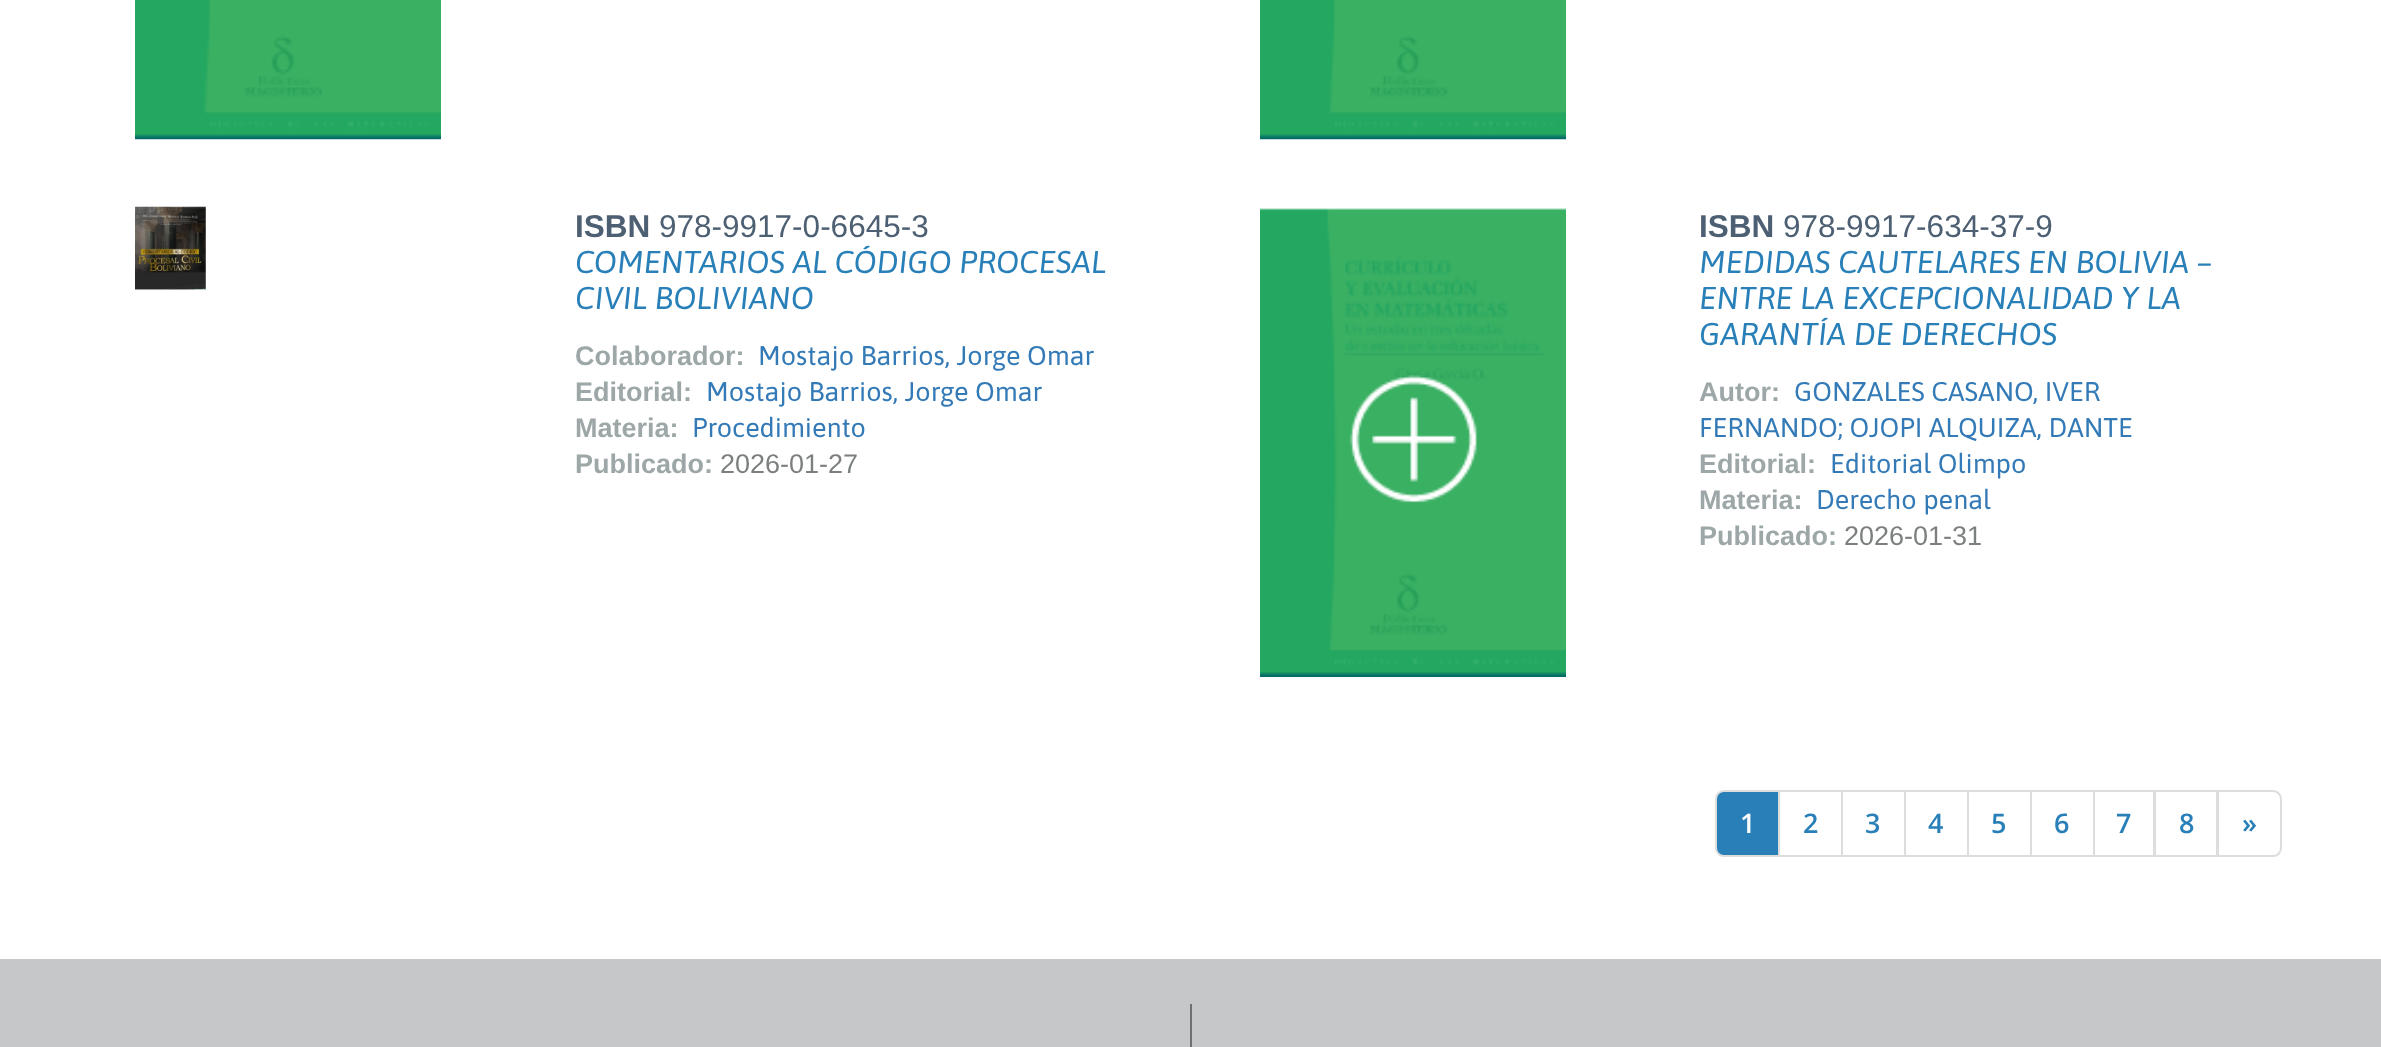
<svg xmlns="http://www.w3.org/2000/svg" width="2381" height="1047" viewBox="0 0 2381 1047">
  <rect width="100%" height="100%" fill="#ffffff"/>
  <image x="135" y="0" width="306" height="140" href="img1.png"/>
  <image x="1260" y="0" width="306" height="140" href="img2.png"/>
  <image x="135" y="206" width="72" height="85" href="img3.png"/>
  <text x="575" y="237" font-family="Liberation Sans" font-size="31.5" font-weight="bold" fill="#4d5f72">ISBN</text>
  <text x="659" y="237" font-family="Liberation Sans" font-size="31.5" fill="#4d5f72">978-9917-0-6645-3</text>
  <text x="575" y="273" font-family="Asap" font-size="31.5" font-style="italic" fill="#2980b9">COMENTARIOS AL CÓDIGO PROCESAL</text>
  <text x="575" y="309" font-family="Asap" font-size="31.5" font-style="italic" fill="#2980b9">CIVIL BOLIVIANO</text>
  <text x="575" y="365" font-family="Liberation Sans" font-size="27" font-weight="bold" fill="#9da7a8">Colaborador:</text>
  <text x="758" y="365" font-family="Asap" font-size="27" fill="#337ab7">Mostajo Barrios, Jorge Omar</text>
  <text x="575" y="401" font-family="Liberation Sans" font-size="27" font-weight="bold" fill="#9da7a8">Editorial:</text>
  <text x="706" y="401" font-family="Asap" font-size="27" fill="#337ab7">Mostajo Barrios, Jorge Omar</text>
  <text x="575" y="437" font-family="Liberation Sans" font-size="27" font-weight="bold" fill="#9da7a8">Materia:</text>
  <text x="692" y="437" font-family="Asap" font-size="27" fill="#337ab7">Procedimiento</text>
  <text x="575" y="473" font-family="Liberation Sans" font-size="27" font-weight="bold" fill="#9da7a8">Publicado:</text>
  <text x="720" y="473" font-family="Liberation Sans" font-size="27" fill="#7c807d">2026-01-27</text>
  <image x="1260" y="208" width="306" height="469" href="img4.png"/>
  <text x="1699" y="237" font-family="Liberation Sans" font-size="31.5" font-weight="bold" fill="#4d5f72">ISBN</text>
  <text x="1783" y="237" font-family="Liberation Sans" font-size="31.5" fill="#4d5f72">978-9917-634-37-9</text>
  <text x="1699" y="273" font-family="Asap" font-size="31.5" font-style="italic" fill="#2980b9">MEDIDAS CAUTELARES EN BOLIVIA –</text>
  <text x="1699" y="309" font-family="Asap" font-size="31.5" font-style="italic" fill="#2980b9">ENTRE LA EXCEPCIONALIDAD Y LA</text>
  <text x="1699" y="345" font-family="Asap" font-size="31.5" font-style="italic" fill="#2980b9">GARANTÍA DE DERECHOS</text>
  <text x="1699" y="401" font-family="Liberation Sans" font-size="27" font-weight="bold" fill="#9da7a8">Autor:</text>
  <text x="1794" y="401" font-family="Asap" font-size="27" fill="#337ab7">GONZALES CASANO, IVER</text>
  <text x="1699" y="437" font-family="Asap" font-size="27" fill="#337ab7">FERNANDO; OJOPI ALQUIZA, DANTE</text>
  <text x="1699" y="473" font-family="Liberation Sans" font-size="27" font-weight="bold" fill="#9da7a8">Editorial:</text>
  <text x="1830" y="473" font-family="Asap" font-size="27" fill="#337ab7">Editorial Olimpo</text>
  <text x="1699" y="509" font-family="Liberation Sans" font-size="27" font-weight="bold" fill="#9da7a8">Materia:</text>
  <text x="1816" y="509" font-family="Asap" font-size="27" fill="#337ab7">Derecho penal</text>
  <text x="1699" y="545" font-family="Liberation Sans" font-size="27" font-weight="bold" fill="#9da7a8">Publicado:</text>
  <text x="1844" y="545" font-family="Liberation Sans" font-size="27" fill="#7c807d">2026-01-31</text>
  <path d="M1724 791H1779V856H1724C1719.5 856 1716 852.5 1716 848V799C1716 794.5 1719.5 791 1724 791Z" fill="#2980b9" stroke="#dddddd" stroke-width="2"/>
  <text x="1740" y="833" font-family="Open Sans" font-size="27" font-weight="600" fill="#ffffff">1</text>
  <rect x="1779" y="791" width="63" height="65" fill="none" stroke="#dddddd" stroke-width="2"/>
  <text x="1803" y="833" font-family="Open Sans" font-size="27" font-weight="600" fill="#2980b9">2</text>
  <rect x="1842" y="791" width="63" height="65" fill="none" stroke="#dddddd" stroke-width="2"/>
  <text x="1865" y="833" font-family="Open Sans" font-size="27" font-weight="600" fill="#2980b9">3</text>
  <rect x="1905" y="791" width="63" height="65" fill="none" stroke="#dddddd" stroke-width="2"/>
  <text x="1928" y="833" font-family="Open Sans" font-size="27" font-weight="600" fill="#2980b9">4</text>
  <rect x="1968" y="791" width="63" height="65" fill="none" stroke="#dddddd" stroke-width="2"/>
  <text x="1991" y="833" font-family="Open Sans" font-size="27" font-weight="600" fill="#2980b9">5</text>
  <rect x="2031" y="791" width="63" height="65" fill="none" stroke="#dddddd" stroke-width="2"/>
  <text x="2054" y="833" font-family="Open Sans" font-size="27" font-weight="600" fill="#2980b9">6</text>
  <rect x="2094" y="791" width="61" height="65" fill="none" stroke="#dddddd" stroke-width="2"/>
  <text x="2116" y="833" font-family="Open Sans" font-size="27" font-weight="600" fill="#2980b9">7</text>
  <rect x="2154" y="791" width="64" height="65" fill="none" stroke="#dddddd" stroke-width="2"/>
  <text x="2179" y="833" font-family="Open Sans" font-size="27" font-weight="600" fill="#2980b9">8</text>
  <path d="M2217 791H2273C2277.5 791 2281 794.5 2281 799V848C2281 852.5 2277.5 856 2273 856H2217Z" fill="none" stroke="#dddddd" stroke-width="2"/>
  <text x="2242" y="833" font-family="Open Sans" font-size="27" font-weight="600" fill="#2980b9">»</text>
  <rect x="0" y="959" width="2381" height="88" fill="#c6c7c8"/>
  <rect x="1190" y="1004" width="2" height="43" fill="#707070"/>
</svg>
